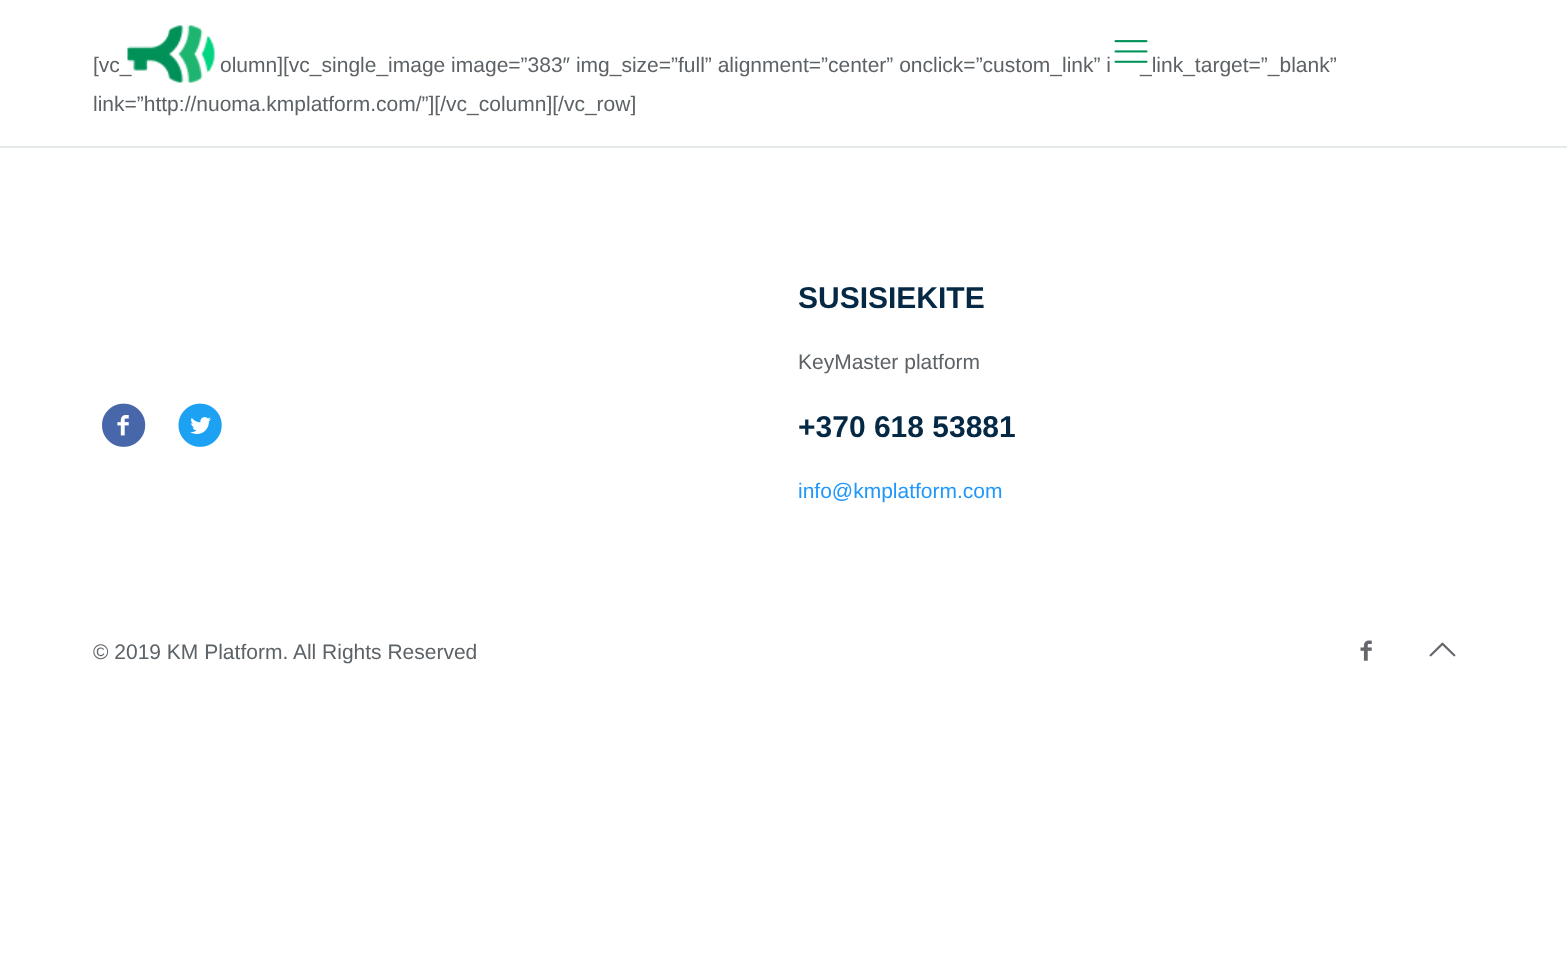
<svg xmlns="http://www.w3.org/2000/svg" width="1567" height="974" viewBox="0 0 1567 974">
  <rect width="100%" height="100%" fill="#ffffff"/>
  <text x="93" y="72" font-family="Liberation Sans" font-size="21" fill="#5c6266">[vc_</text>
  <image x="127" y="25" width="88" height="58" href="img1.png"/>
  <text x="1140" y="72" font-family="Liberation Sans" font-size="21" fill="#5c6266">_link_target=”_blank”</text>
  <image x="1114" y="40" width="34" height="23" href="img2.png"/>
  <text x="220" y="72" font-family="Liberation Sans" font-size="21" fill="#5c6266">olumn][vc_single_image image=”383″ img_size=”full” alignment=”center” onclick=”custom_link” i</text>
  <text x="93" y="111" font-family="Liberation Sans" font-size="21" fill="#5c6266">link=”http://nuoma.kmplatform.com/”][/vc_column][/vc_row]</text>
  <rect x="0" y="146" width="1567" height="2" fill="#e4e9eb"/>
  <image x="102" y="403" width="44" height="44" href="img3.png"/>
  <image x="178" y="403" width="44" height="44" href="img4.png"/>
  <text x="798" y="308" font-family="Liberation Sans" font-size="30" font-weight="bold" fill="#052944">SUSISIEKITE</text>
  <text x="798" y="369" font-family="Liberation Sans" font-size="21" fill="#5c6266">KeyMaster platform</text>
  <text x="798" y="437" font-family="Liberation Sans" font-size="30" font-weight="bold" fill="#052944">+370 618 53881</text>
  <text x="798" y="498" font-family="Liberation Sans" font-size="21" fill="#2097fc">info@kmplatform.com</text>
  <text x="93" y="659" font-family="Liberation Sans" font-size="21" fill="#5c6266">© 2019 KM Platform. All Rights Reserved</text>
  <image x="1360" y="640" width="12" height="21" href="img5.png"/>
  <image x="1429" y="642" width="27" height="15" href="img6.png"/>
</svg>
